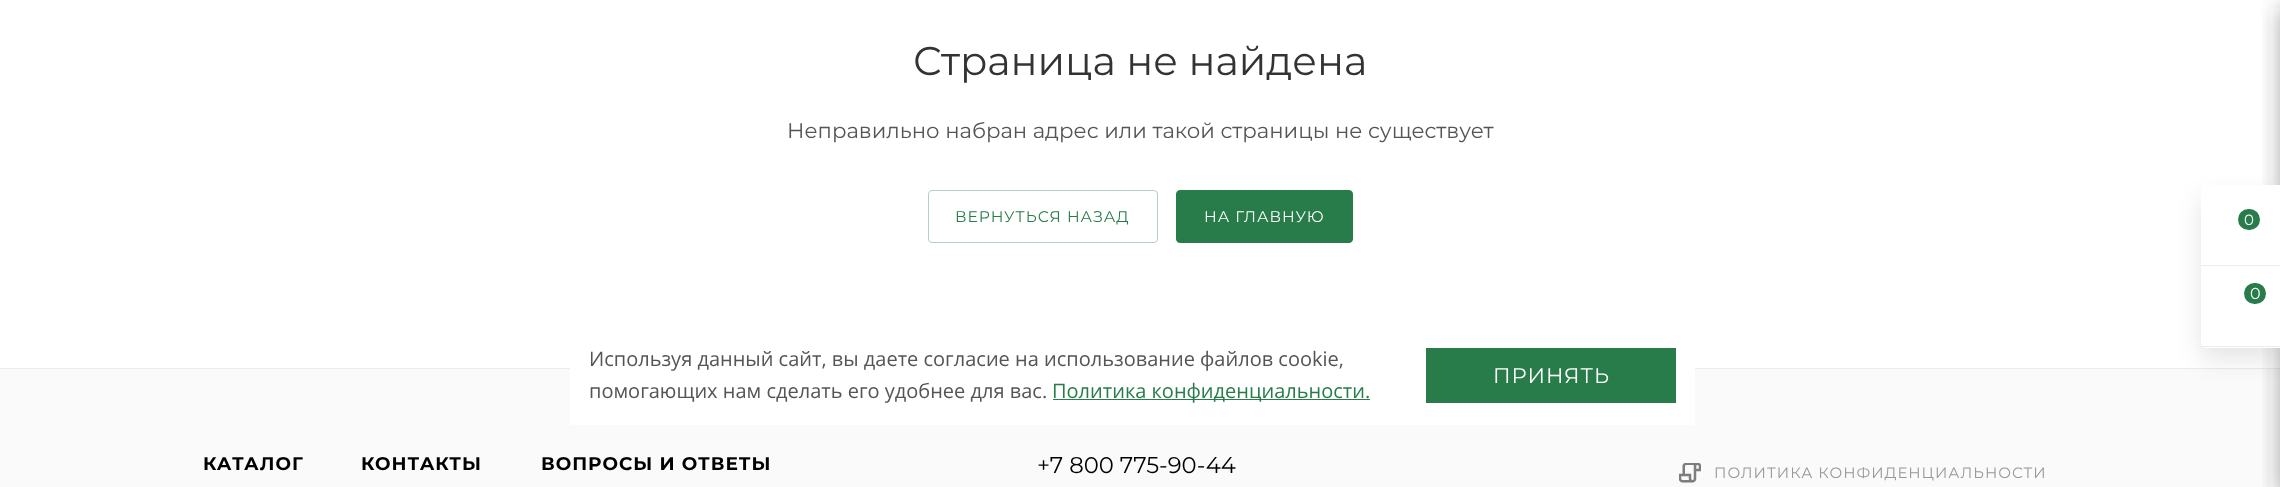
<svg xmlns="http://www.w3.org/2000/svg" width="2280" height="487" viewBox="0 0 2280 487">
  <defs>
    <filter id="blur1" x="-50%" y="-200%" width="200%" height="500%"><feGaussianBlur stdDeviation="11"/></filter>
    <filter id="blur2" x="-50%" y="-200%" width="200%" height="500%"><feGaussianBlur stdDeviation="12.5"/></filter>
  </defs>
  <rect width="100%" height="100%" fill="#ffffff"/>
  <text x="913" y="75" font-family="Montserrat" font-size="40" fill="#333333">Страница не найдена</text>
  <text x="787" y="138" font-family="Montserrat" font-size="21.25" fill="#555555">Неправильно набран адрес или такой страницы не существует</text>
  <rect x="928.5" y="190.5" width="229" height="52" rx="3.5" fill="none" stroke="#b3d1bf"/>
  <text x="955" y="222" font-family="Montserrat" font-size="15.5" letter-spacing="1" fill="#277c49">ВЕРНУТЬСЯ НАЗАД</text>
  <rect x="1176.5" y="190.5" width="176" height="52" rx="3.5" fill="#277c49" stroke="#277c49"/>
  <text x="1204" y="222" font-family="Montserrat" font-size="15.5" letter-spacing="1" fill="#ffffff">НА ГЛАВНУЮ</text>
  <rect x="0" y="369" width="2280" height="118" fill="#fafafa"/>
  <rect x="0" y="368" width="2280" height="1" fill="#ececec"/>
  <rect x="2280" y="8" width="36" height="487" rx="2.5" fill="#2c2c2c" fill-opacity="0.4" filter="url(#blur1)"/>
  <rect x="2201" y="198" width="79" height="162" rx="5" fill="#000000" fill-opacity="0.1" filter="url(#blur2)"/>
  <path d="M2206 185H2280V348H2206C2203 348 2201 346 2201 343V190C2201 187 2203 185 2206 185Z" fill="#ffffff"/>
  <rect x="2201" y="265" width="79" height="1" fill="#ececec"/>
  <rect x="2238" y="209" width="22" height="21" rx="10.5" fill="#277c49"/>
  <text x="2244" y="225" font-family="Montserrat" font-size="15" fill="#ffffff">0</text>
  <rect x="2201" y="346" width="79" height="1" fill="#ececec"/>
  <rect x="2244" y="283" width="22" height="21" rx="10.5" fill="#277c49"/>
  <text x="2250" y="299" font-family="Montserrat" font-size="16" fill="#ffffff">0</text>
  <rect x="570" y="368" width="1125" height="57" fill="#ffffff"/>
  <text x="589" y="366" font-family="Open Sans" font-size="20" fill="#555555">Используя данный сайт, вы даете согласие на использование файлов cookie,</text>
  <text x="589" y="398" font-family="Open Sans" font-size="20" fill="#555555">помогающих нам сделать его удобнее для вас.</text>
  <rect x="1053" y="399" width="317" height="1" fill="#277c49"/>
  <text x="1052" y="398" font-family="Open Sans" font-size="20" fill="#277c49">Политика конфиденциальности.</text>
  <rect x="1426" y="348" width="250" height="55" fill="#277c49"/>
  <text x="1493" y="383" font-family="Montserrat" font-size="21.25" letter-spacing="1" fill="#ffffff">ПРИНЯТЬ</text>
  <text x="203" y="470" font-family="Montserrat" font-size="18.4" font-weight="bold" letter-spacing="1" fill="#000000">КАТАЛОГ</text>
  <text x="361" y="470" font-family="Montserrat" font-size="18.4" font-weight="bold" letter-spacing="1" fill="#000000">КОНТАКТЫ</text>
  <text x="541" y="470" font-family="Montserrat" font-size="18.4" font-weight="bold" letter-spacing="1" fill="#000000">ВОПРОСЫ И ОТВЕТЫ</text>
  <text x="1037" y="473" font-family="Montserrat" font-size="22.75" fill="#000000">+7 800 775-90-44</text>
  <image x="1679" y="463" width="22" height="20" href="img1.png"/>
  <text x="1714" y="478" font-family="Montserrat" font-size="15" letter-spacing="1" fill="#999999">ПОЛИТИКА КОНФИДЕНЦИАЛЬНОСТИ</text>
</svg>
